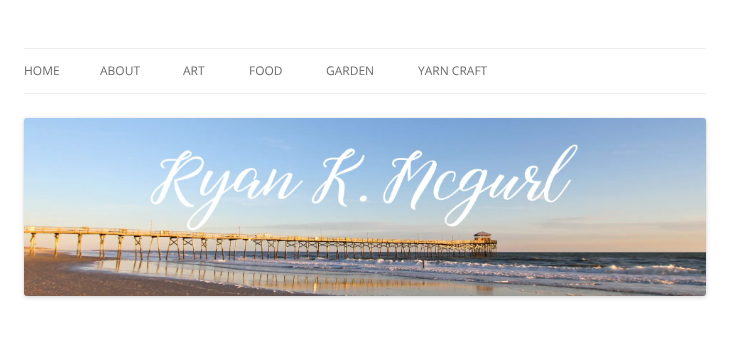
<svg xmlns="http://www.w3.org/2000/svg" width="730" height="339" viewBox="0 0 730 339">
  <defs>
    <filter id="blur1" x="-50%" y="-200%" width="200%" height="500%"><feGaussianBlur stdDeviation="2"/></filter>
  </defs>
  <rect width="100%" height="100%" fill="#ffffff"/>
  <rect x="24" y="48" width="682" height="1" fill="#ededed"/>
  <rect x="24" y="93" width="682" height="1" fill="#ededed"/>
  <text x="24" y="75" font-family="Open Sans" font-size="12" fill="#6a6a6a">HOME</text>
  <text x="100" y="75" font-family="Open Sans" font-size="12" fill="#6a6a6a">ABOUT</text>
  <text x="183" y="75" font-family="Open Sans" font-size="12" fill="#6a6a6a">ART</text>
  <text x="249" y="75" font-family="Open Sans" font-size="12" fill="#6a6a6a">FOOD</text>
  <text x="326" y="75" font-family="Open Sans" font-size="12" fill="#6a6a6a">GARDEN</text>
  <text x="418" y="75" font-family="Open Sans" font-size="12" fill="#6a6a6a">YARN CRAFT</text>
  <rect x="24" y="119" width="682" height="178" rx="3" fill="#000000" fill-opacity="0.2" filter="url(#blur1)"/>
  <image x="24" y="118" width="682" height="178" href="img1.png"/>
</svg>
